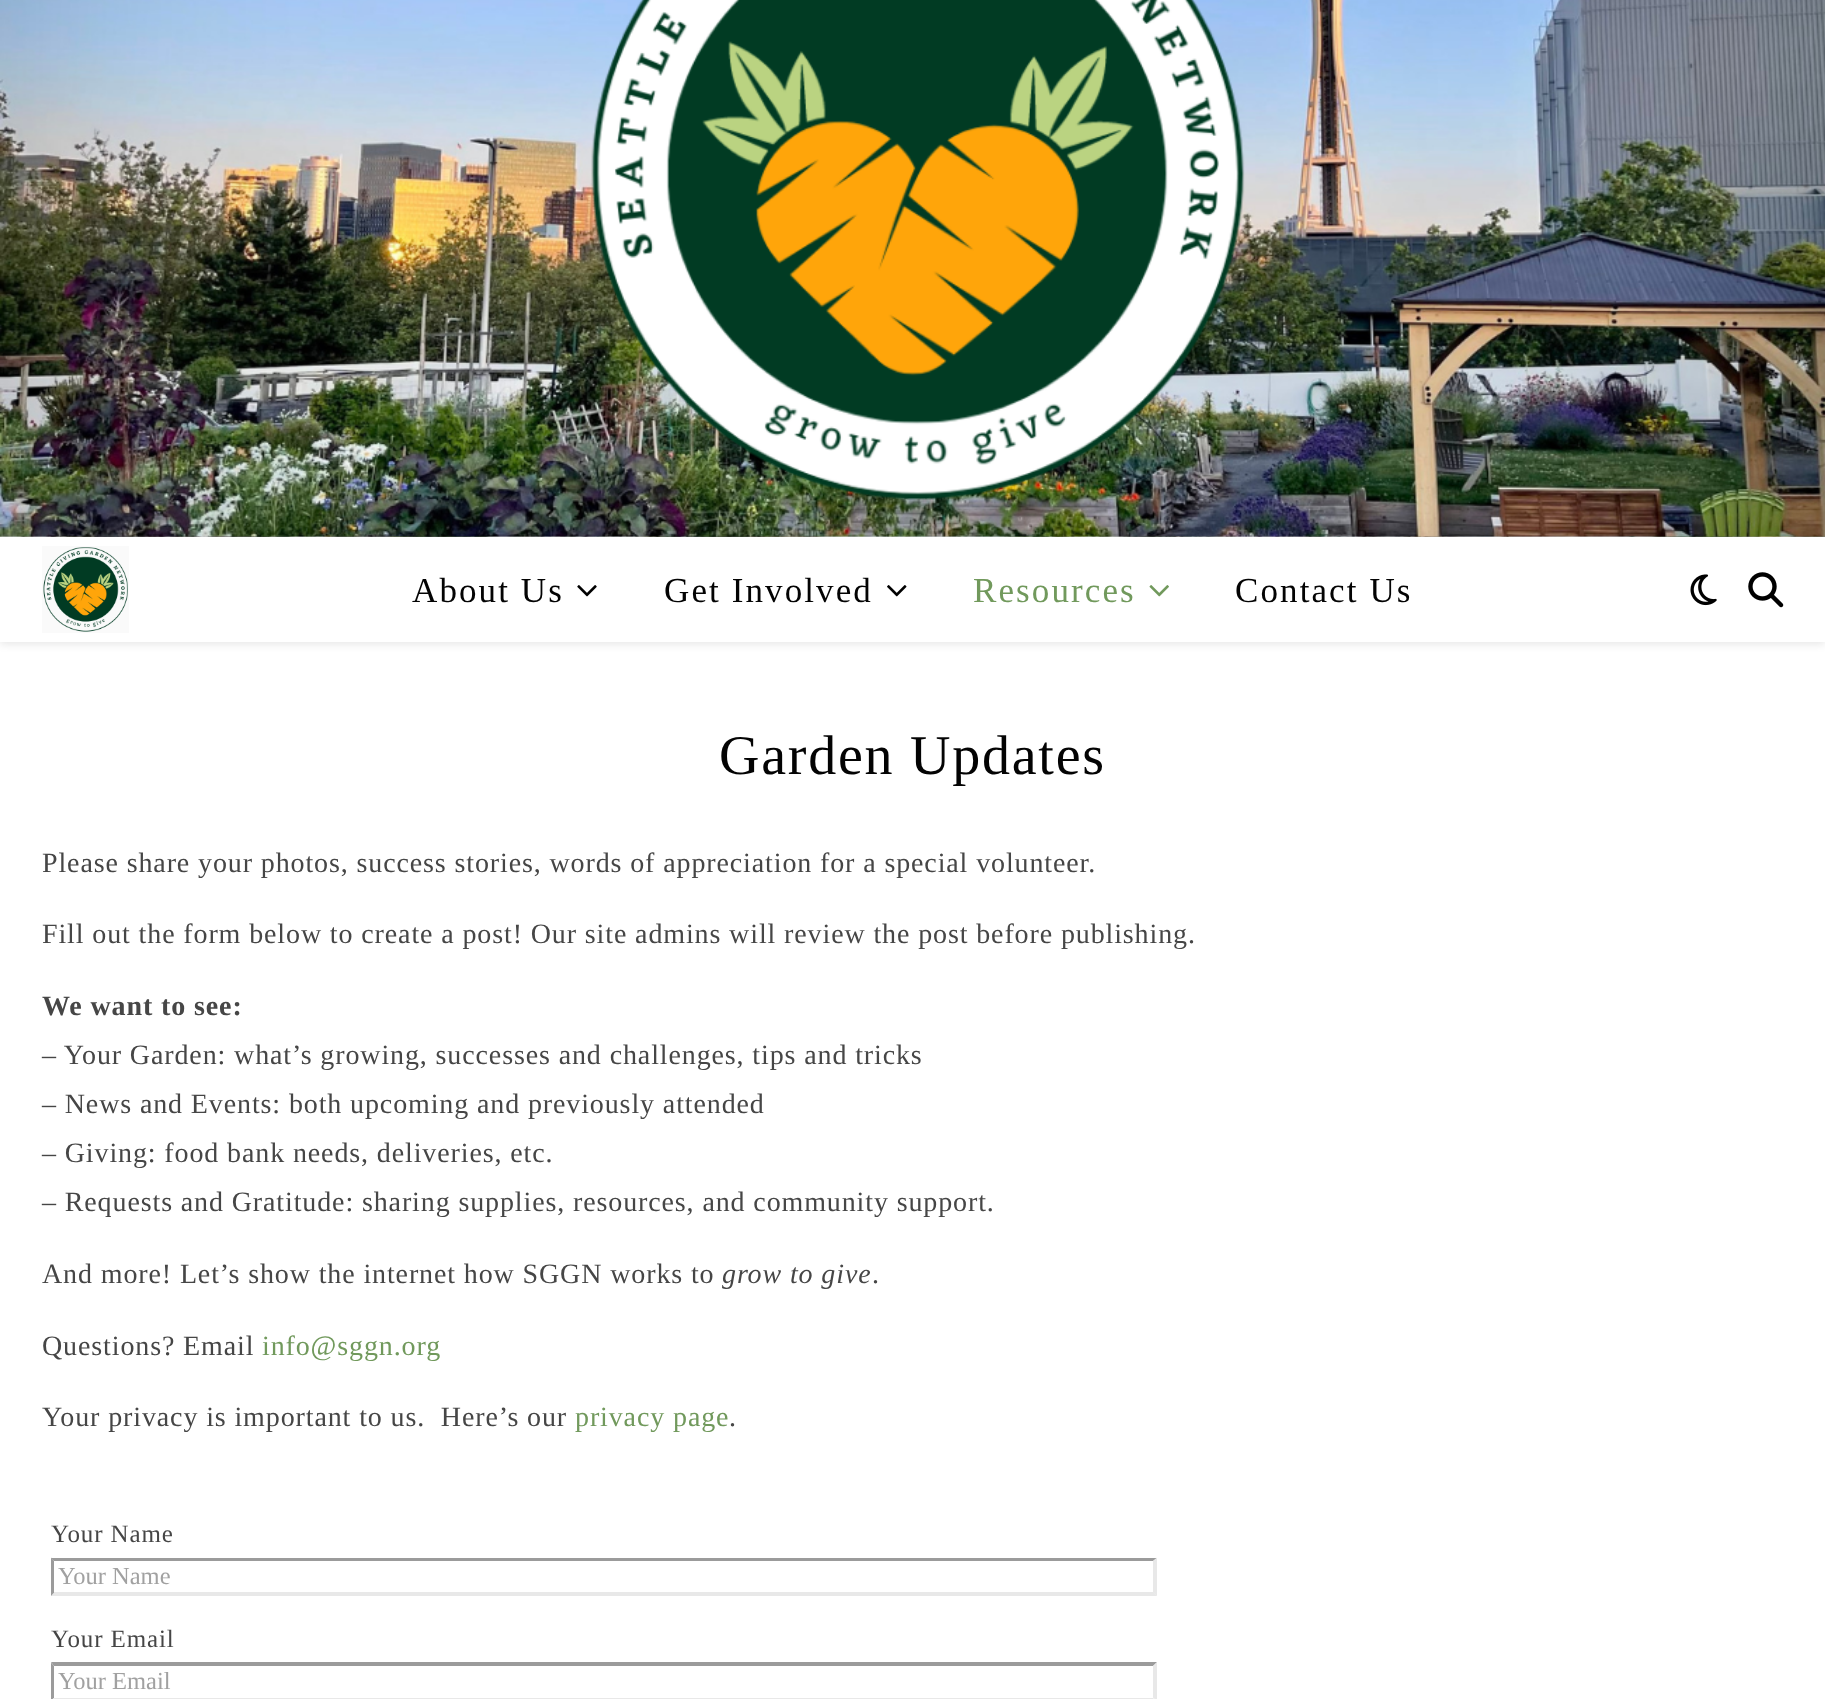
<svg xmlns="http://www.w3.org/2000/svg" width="1825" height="1699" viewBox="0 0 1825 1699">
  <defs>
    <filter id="blur1" x="-50%" y="-200%" width="200%" height="500%"><feGaussianBlur stdDeviation="4.5"/></filter>
  </defs>
  <rect width="100%" height="100%" fill="#ffffff"/>
  <image x="0" y="536" width="1825" height="1" href="img1.png"/>
  <image x="0" y="0" width="1825" height="537" href="img2.png"/>
  <image x="591" y="0" width="654" height="500" href="img3.png"/>
  <rect x="0" y="539" width="1825" height="105" fill="#000000" fill-opacity="0.1" filter="url(#blur1)"/>
  <rect x="0" y="537" width="1825" height="105" fill="#ffffff"/>
  <image x="42" y="546" width="87" height="87" href="img4.png"/>
  <text x="412" y="602" font-family="Liberation Serif" font-size="35" letter-spacing="2.1" fill="#030303">About Us</text>
  <image x="577" y="585" width="20" height="12" href="img5.png"/>
  <text x="664" y="602" font-family="Liberation Serif" font-size="35" letter-spacing="2.1" fill="#030303">Get Involved</text>
  <image x="887" y="585" width="20" height="12" href="img6.png"/>
  <text x="973" y="602" font-family="Liberation Serif" font-size="35" letter-spacing="2.1" fill="#71995c">Resources</text>
  <image x="1149" y="585" width="20" height="12" href="img7.png"/>
  <text x="1235" y="602" font-family="Liberation Serif" font-size="35" letter-spacing="2.1" fill="#030303">Contact Us</text>
  <image x="1690" y="574" width="27" height="32" href="img8.png"/>
  <image x="1748" y="572" width="36" height="36" href="img9.png"/>
  <text x="719" y="774" font-family="Liberation Serif" font-size="56" letter-spacing="1.75" fill="#030303">Garden Updates</text>
  <text x="42" y="872" font-family="Liberation Serif" font-size="28" letter-spacing="0.88" fill="#464646">Please share your photos, success stories, words of appreciation for a special volunteer.</text>
  <text x="42" y="943" font-family="Liberation Serif" font-size="28" letter-spacing="0.88" fill="#464646">Fill out the form below to create a post! Our site admins will review the post before publishing.</text>
  <text x="42" y="1015" font-family="Liberation Serif" font-size="28" font-weight="bold" letter-spacing="0.88" fill="#464646">We want to see:</text>
  <text x="42" y="1064" font-family="Liberation Serif" font-size="28" letter-spacing="0.88" fill="#464646">– Your Garden: what’s growing, successes and challenges, tips and tricks</text>
  <text x="42" y="1113" font-family="Liberation Serif" font-size="28" letter-spacing="0.88" fill="#464646">– News and Events: both upcoming and previously attended</text>
  <text x="42" y="1162" font-family="Liberation Serif" font-size="28" letter-spacing="0.88" fill="#464646">– Giving: food bank needs, deliveries, etc.</text>
  <text x="42" y="1211" font-family="Liberation Serif" font-size="28" letter-spacing="0.88" fill="#464646">– Requests and Gratitude: sharing supplies, resources, and community support.</text>
  <text x="42" y="1283" font-family="Liberation Serif" font-size="28" letter-spacing="0.88" fill="#464646">And more! Let’s show the internet how SGGN works to</text>
  <text x="722" y="1283" font-family="Liberation Serif" font-size="28" font-style="italic" letter-spacing="0.88" fill="#464646">grow to give</text>
  <text x="872" y="1283" font-family="Liberation Serif" font-size="28" letter-spacing="0.88" fill="#464646">.</text>
  <text x="42" y="1355" font-family="Liberation Serif" font-size="28" letter-spacing="0.88" fill="#464646">Questions? Email</text>
  <text x="262" y="1355" font-family="Liberation Serif" font-size="28" letter-spacing="0.88" fill="#71995c">info@sggn.org</text>
  <text x="42" y="1426" font-family="Liberation Serif" font-size="28" letter-spacing="0.88" fill="#464646" xml:space="preserve">Your privacy is important to us.  Here’s our</text>
  <text x="575" y="1426" font-family="Liberation Serif" font-size="28" letter-spacing="0.88" fill="#71995c">privacy page</text>
  <text x="729" y="1426" font-family="Liberation Serif" font-size="28" letter-spacing="0.88" fill="#464646">.</text>
  <text x="51" y="1542" font-family="Liberation Serif" font-size="25" letter-spacing="0.88" fill="#464646">Your Name</text>
  <path d="M51 1558H1157L1153 1561H54Z" fill="#9b9b9b"/>
  <path d="M1157 1557.5V1596L1153 1592.5V1561Z" fill="#e8e8e8"/>
  <path d="M1157 1596H51L54 1592H1153Z" fill="#e8e8e8"/>
  <path d="M51 1596V1557.5L54 1561V1592.5Z" fill="#9b9b9b"/>
  <text x="58" y="1584" font-family="Liberation Serif" font-size="24.5" fill="#a1a1a1">Your Name</text>
  <text x="51" y="1647" font-family="Liberation Serif" font-size="25" letter-spacing="0.88" fill="#464646">Your Email</text>
  <path d="M51 1662H1157L1153 1666H54Z" fill="#9b9b9b"/>
  <path d="M1157 1662.5V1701L1153 1697.5V1666Z" fill="#e8e8e8"/>
  <path d="M1157 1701H51L54 1698H1153Z" fill="#e8e8e8"/>
  <path d="M51 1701V1662.5L54 1666V1697.5Z" fill="#9b9b9b"/>
  <text x="58" y="1689" font-family="Liberation Serif" font-size="24.5" fill="#a1a1a1">Your Email</text>
</svg>
